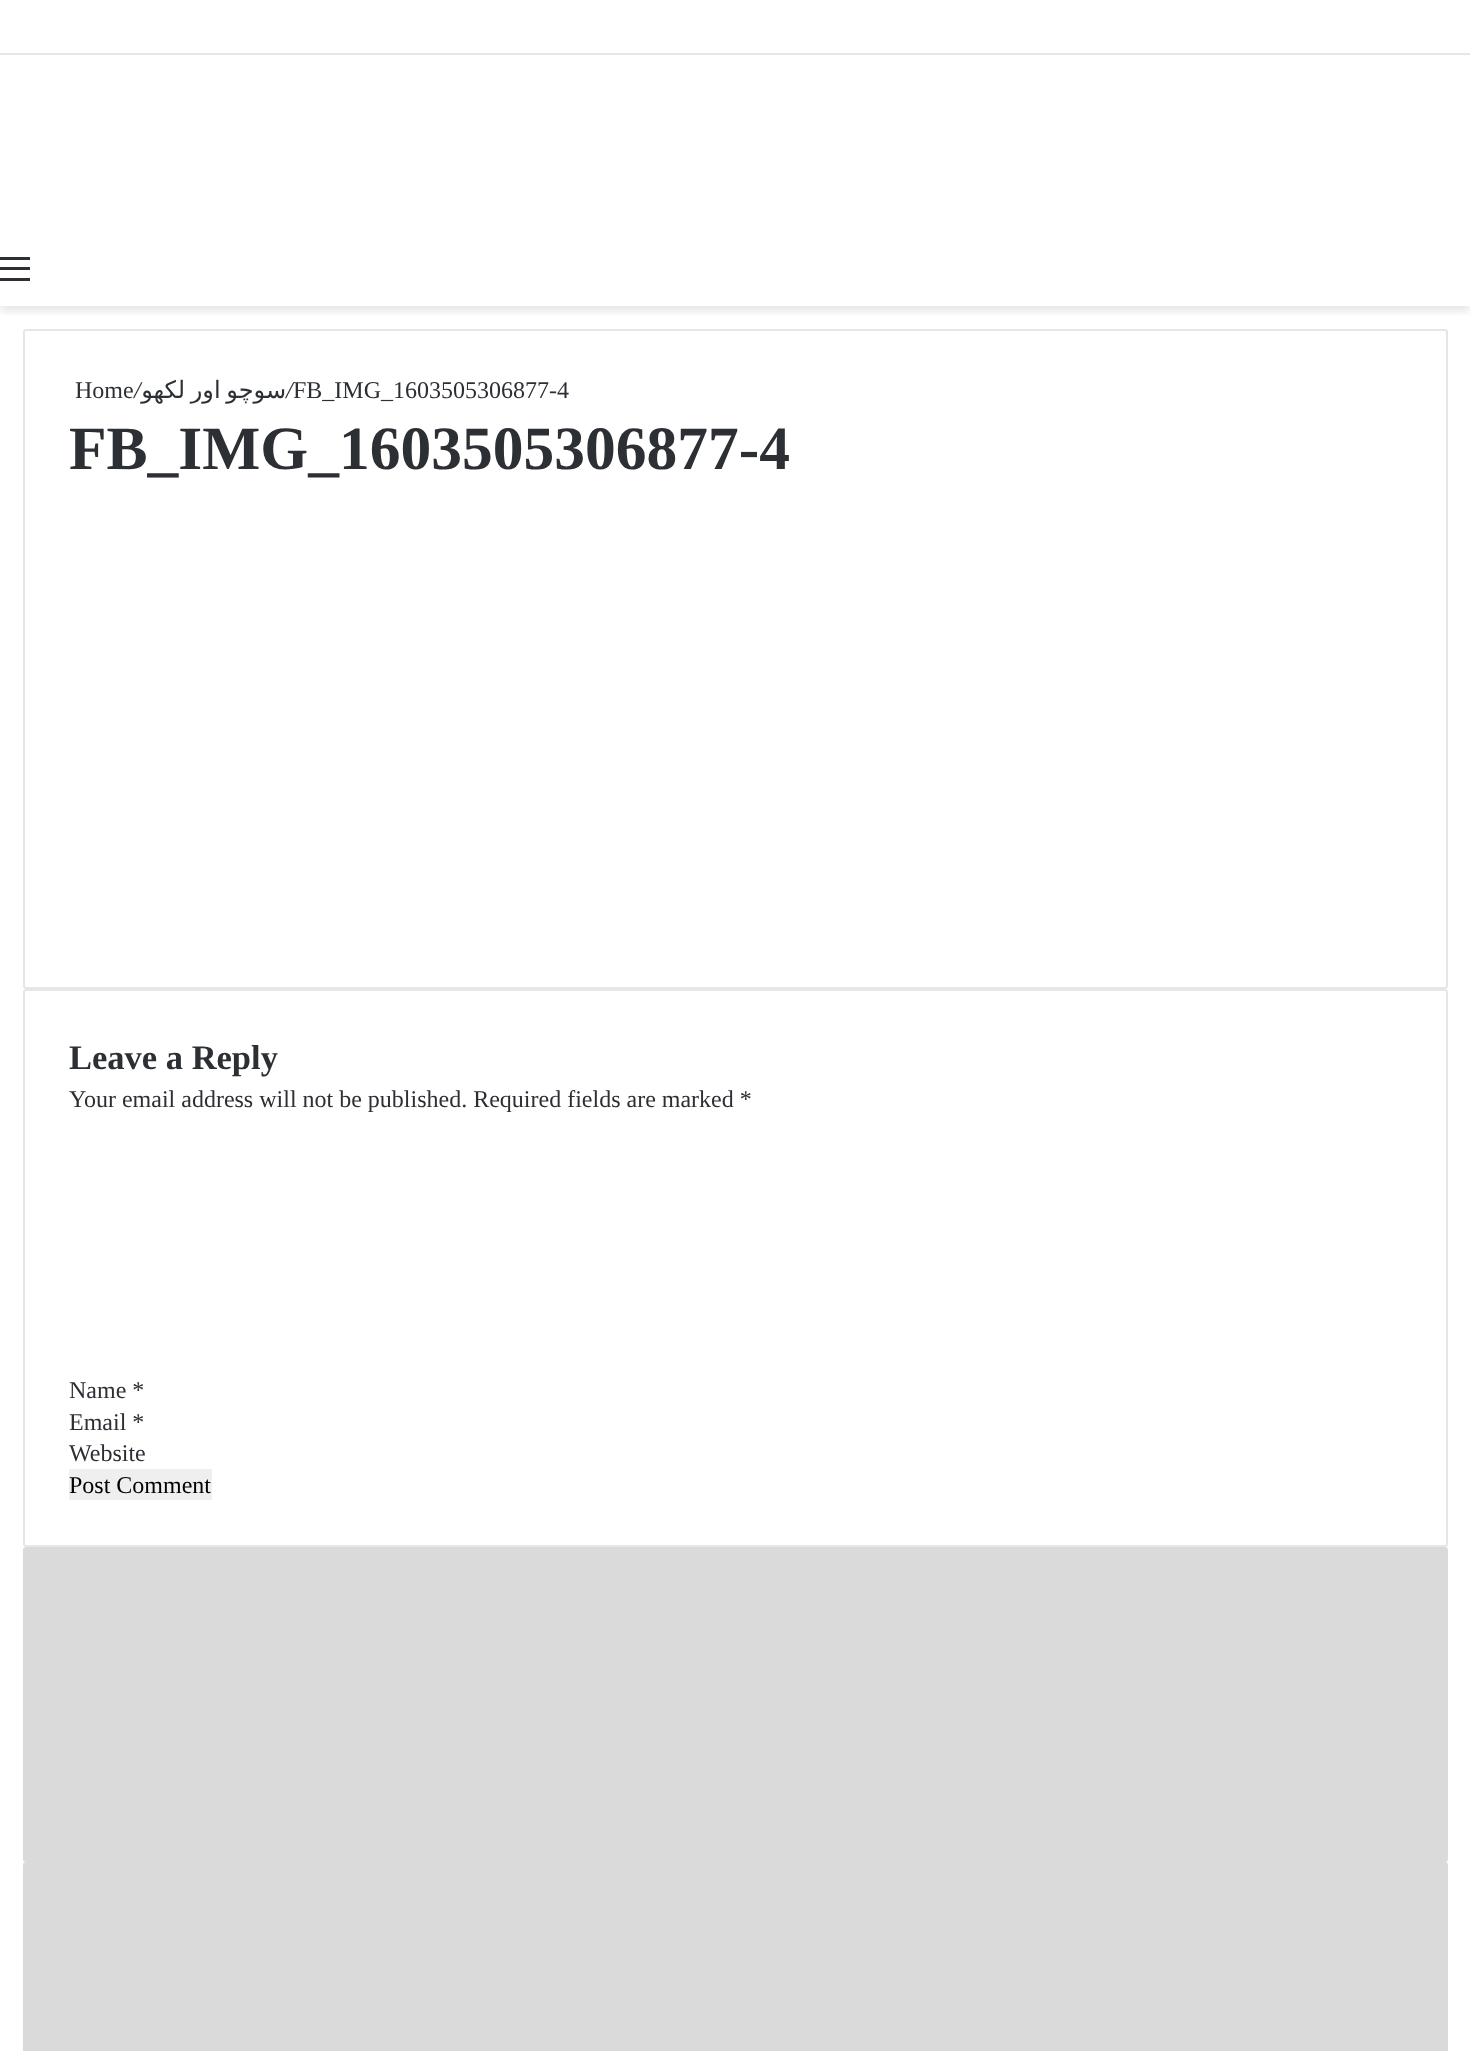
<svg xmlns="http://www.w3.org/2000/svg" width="1470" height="2051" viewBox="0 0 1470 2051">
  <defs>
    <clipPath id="clip1"><rect x="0" y="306" width="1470" height="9"/></clipPath>
    <filter id="blur1" x="-50%" y="-200%" width="200%" height="500%"><feGaussianBlur stdDeviation="5"/></filter>
  </defs>
  <rect width="100%" height="100%" fill="#ffffff"/>
  <g clip-path="url(#clip1)">
    <rect x="0" y="59" width="1470" height="252" fill="#000000" fill-opacity="0.1" filter="url(#blur1)"/>
  </g>
  <rect x="0" y="267" width="30" height="3" fill="#2c2f34"/>
  <rect x="0" y="257" width="30" height="3" fill="#2c2f34"/>
  <rect x="0" y="278" width="30" height="3" fill="#2c2f34"/>
  <rect x="0" y="53" width="1470" height="2" fill="#e6e6e6"/>
  <rect x="24" y="330" width="1423" height="658" rx="2" fill="none" stroke="#e6e6e6" stroke-width="2"/>
  <text x="75" y="398" font-family="Liberation Serif" font-size="24" fill="#2c2f34">Home</text>
  <text x="134" y="398" font-family="Liberation Serif" font-size="24" font-style="italic" fill="#2c2f34">/</text>
  <text x="286" y="398" word-spacing="-2" font-family="DejaVu Sans" font-size="24" direction="rtl" fill="#2c2f34">سوچو اور لکھو</text>
  <text x="286" y="398" font-family="Liberation Serif" font-size="24" font-style="italic" fill="#2c2f34">/</text>
  <text x="293" y="398" font-family="Liberation Serif" font-size="24" fill="#2c2f34">FB_IMG_1603505306877-4</text>
  <text x="69" y="469" font-family="Liberation Serif" font-size="61.5" font-weight="bold" fill="#2c2f34">FB_IMG_1603505306877-4</text>
  <rect x="24" y="990" width="1423" height="556" rx="2" fill="none" stroke="#e6e6e6" stroke-width="2"/>
  <text x="69" y="1069" font-family="Liberation Serif" font-size="34.5" font-weight="bold" fill="#2c2f34">Leave a Reply</text>
  <text x="69" y="1107" font-family="Liberation Serif" font-size="24" fill="#2c2f34">Your email address will not be published. Required fields are marked *</text>
  <text x="69" y="1398" font-family="Liberation Serif" font-size="24" fill="#2c2f34">Name *</text>
  <text x="69" y="1430" font-family="Liberation Serif" font-size="24" fill="#2c2f34">Email *</text>
  <text x="69" y="1461" font-family="Liberation Serif" font-size="24" fill="#2c2f34">Website</text>
  <rect x="69" y="1469" width="143" height="31" fill="#efefef"/>
  <text x="69" y="1493" font-family="Liberation Serif" font-size="24" fill="#000000">Post Comment</text>
  <rect x="23" y="1547" width="1425" height="315" rx="3" fill="#dadada"/>
  <rect x="23" y="1862" width="1425" height="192" rx="3" fill="#dadada"/>
</svg>
